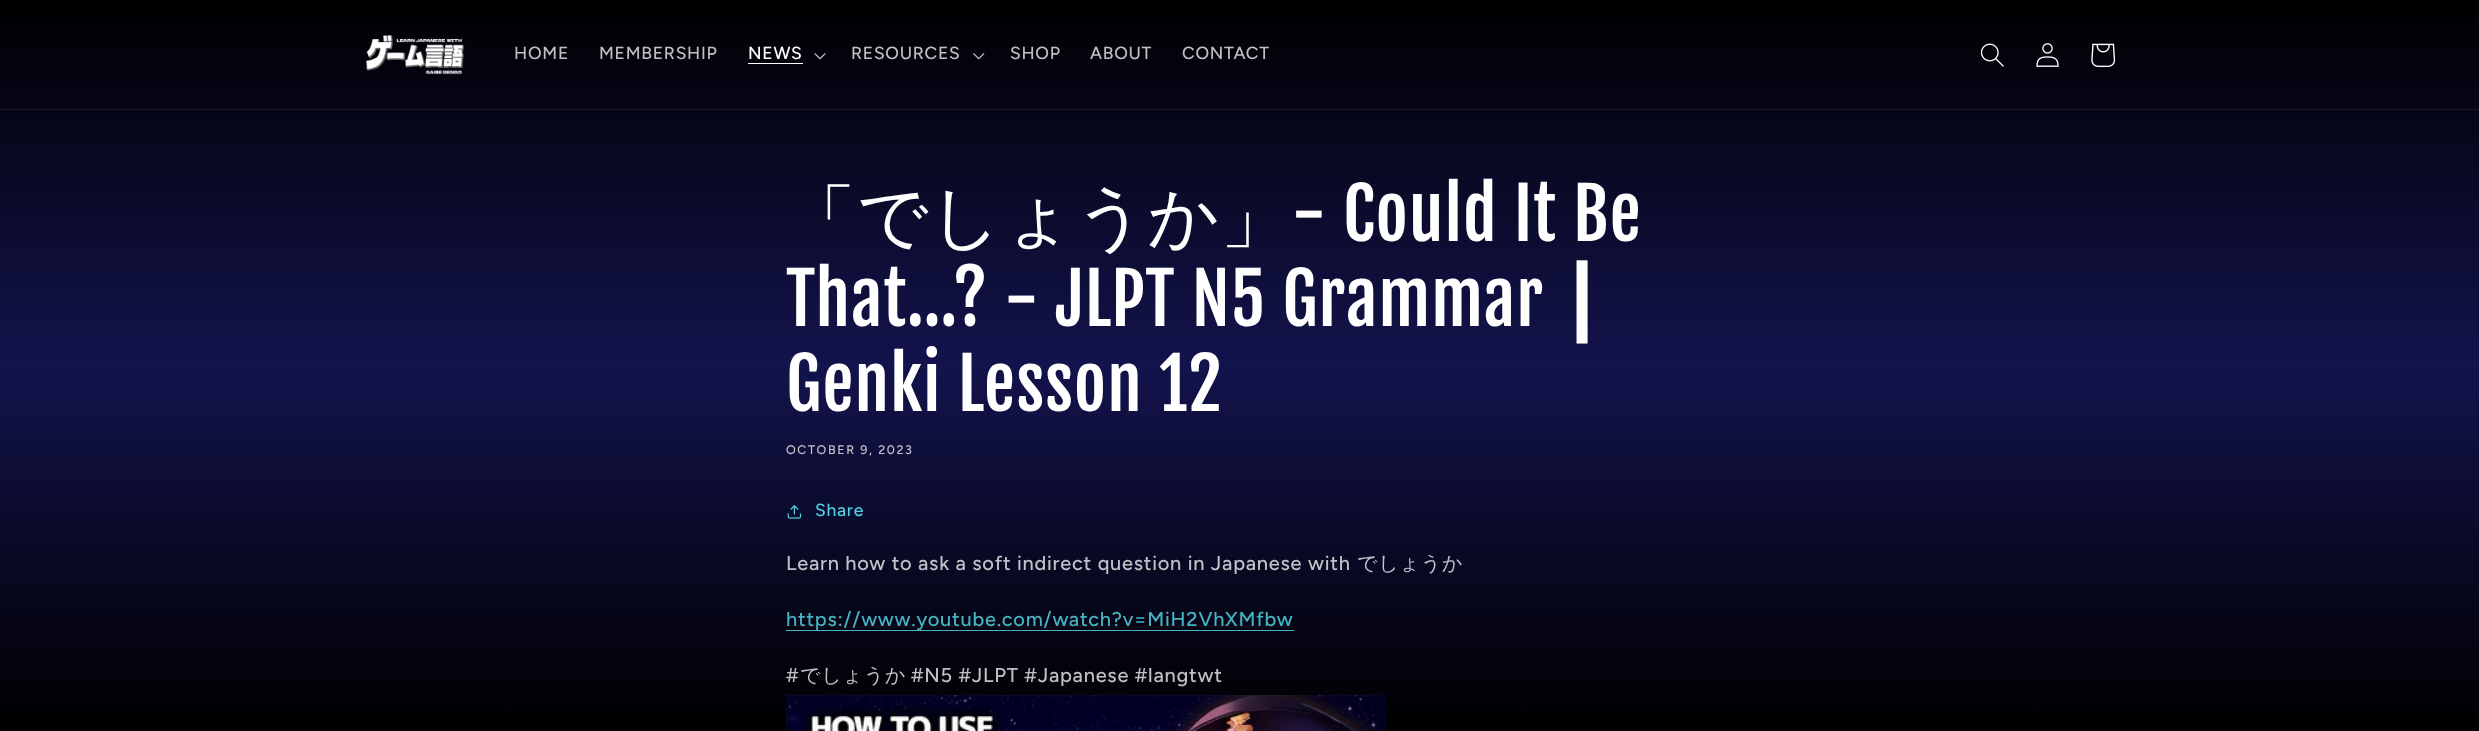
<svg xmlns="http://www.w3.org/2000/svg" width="2479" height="731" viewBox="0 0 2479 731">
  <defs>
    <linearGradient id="g1" gradientUnits="userSpaceOnUse" x1="1240" y1="0" x2="1240" y2="731"><stop offset="0" stop-color="#000000"/><stop offset="0.5" stop-color="#13134d"/><stop offset="1" stop-color="#000000"/></linearGradient>
  </defs>
  <rect width="100%" height="100%" fill="#ffffff"/>
  <rect x="0" y="0" width="2479" height="731" fill="url(#g1)"/>
  <rect x="0" y="109" width="2479" height="1" fill="#1a1a2a"/>
  <image x="365" y="35" width="100" height="40" href="img1.png"/>
  <text x="514" y="59" font-family="Figtree" font-size="17.5" font-weight="500" letter-spacing="0.75" fill="#c0c0c2">HOME</text>
  <text x="599" y="59" font-family="Figtree" font-size="17.5" font-weight="500" letter-spacing="0.75" fill="#c0c0c2">MEMBERSHIP</text>
  <text x="748" y="59" font-family="Figtree" font-size="17.5" font-weight="500" letter-spacing="0.75" fill="#ffffff">NEWS</text>
  <rect x="748" y="63" width="55" height="1" fill="#ffffff"/>
  <image x="814" y="53" width="12" height="7" href="img2.png"/>
  <text x="851" y="59" font-family="Figtree" font-size="17.5" font-weight="500" letter-spacing="0.75" fill="#c0c0c2">RESOURCES</text>
  <image x="973" y="53" width="12" height="7" href="img3.png"/>
  <text x="1010" y="59" font-family="Figtree" font-size="17.5" font-weight="500" letter-spacing="0.75" fill="#c0c0c2">SHOP</text>
  <text x="1090" y="59" font-family="Figtree" font-size="17.5" font-weight="500" letter-spacing="0.75" fill="#c0c0c2">ABOUT</text>
  <text x="1182" y="59" font-family="Figtree" font-size="17.5" font-weight="500" letter-spacing="0.75" fill="#c0c0c2">CONTACT</text>
  <image x="1980" y="43" width="24" height="24" href="img4.png"/>
  <image x="2036" y="43" width="23" height="24" href="img5.png"/>
  <image x="2091" y="43" width="25" height="24" href="img6.png"/>
  <text x="786" y="241" font-family="WenQuanYi Zen Hei" font-size="70" font-weight="500" letter-spacing="1.05" fill="#ffffff">「でしょうか」</text>
  <text x="1292" y="241" font-family="Fjalla One" font-size="70" letter-spacing="1.05" fill="#ffffff">- Could It Be</text>
  <text x="786" y="326" font-family="Fjalla One" font-size="70" letter-spacing="1.05" fill="#ffffff">That...? - JLPT N5 Grammar</text>
  <text x="1561" y="326" font-family="DejaVu Sans" font-size="70" letter-spacing="1.05" fill="#ffffff">┃</text>
  <text x="786" y="411" font-family="Fjalla One" font-size="70" letter-spacing="1.05" fill="#ffffff">Genki Lesson 12</text>
  <text x="786" y="454" font-family="Figtree" font-size="12.5" font-weight="500" letter-spacing="1.6" fill="#c3c3ce">OCTOBER 9, 2023</text>
  <image x="787" y="505" width="15" height="14" href="img7.png"/>
  <text x="815" y="516" font-family="Figtree" font-size="17.5" font-weight="500" letter-spacing="0.75" fill="#51d1e1">Share</text>
  <text x="786" y="570" font-family="Figtree" font-size="20" font-weight="500" letter-spacing="0.75" fill="#c1c1c8">Learn how to ask a soft indirect question in Japanese with</text>
  <text x="1357" y="570" font-family="WenQuanYi Zen Hei" font-size="20" font-weight="500" letter-spacing="0.75" fill="#c1c1c8">でしょうか</text>
  <rect x="786" y="630" width="508" height="1" fill="#46b2c2"/>
  <text x="786" y="626" font-family="Figtree" font-size="20" font-weight="500" letter-spacing="0.75" fill="#46b3c3">https://www.youtube.com/watch?v=MiH2VhXMfbw</text>
  <text x="786" y="682" font-family="Figtree" font-size="20" font-weight="500" letter-spacing="0.75" fill="#c0c0c2">#</text>
  <text x="800" y="682" font-family="WenQuanYi Zen Hei" font-size="20" font-weight="500" letter-spacing="0.75" fill="#c0c0c2">でしょうか</text>
  <text x="911" y="682" font-family="Figtree" font-size="20" font-weight="500" letter-spacing="0.75" fill="#c0c0c2">#N5 #JLPT #Japanese #langtwt</text>
  <image x="786" y="695" width="601" height="36" href="img8.png"/>
</svg>
